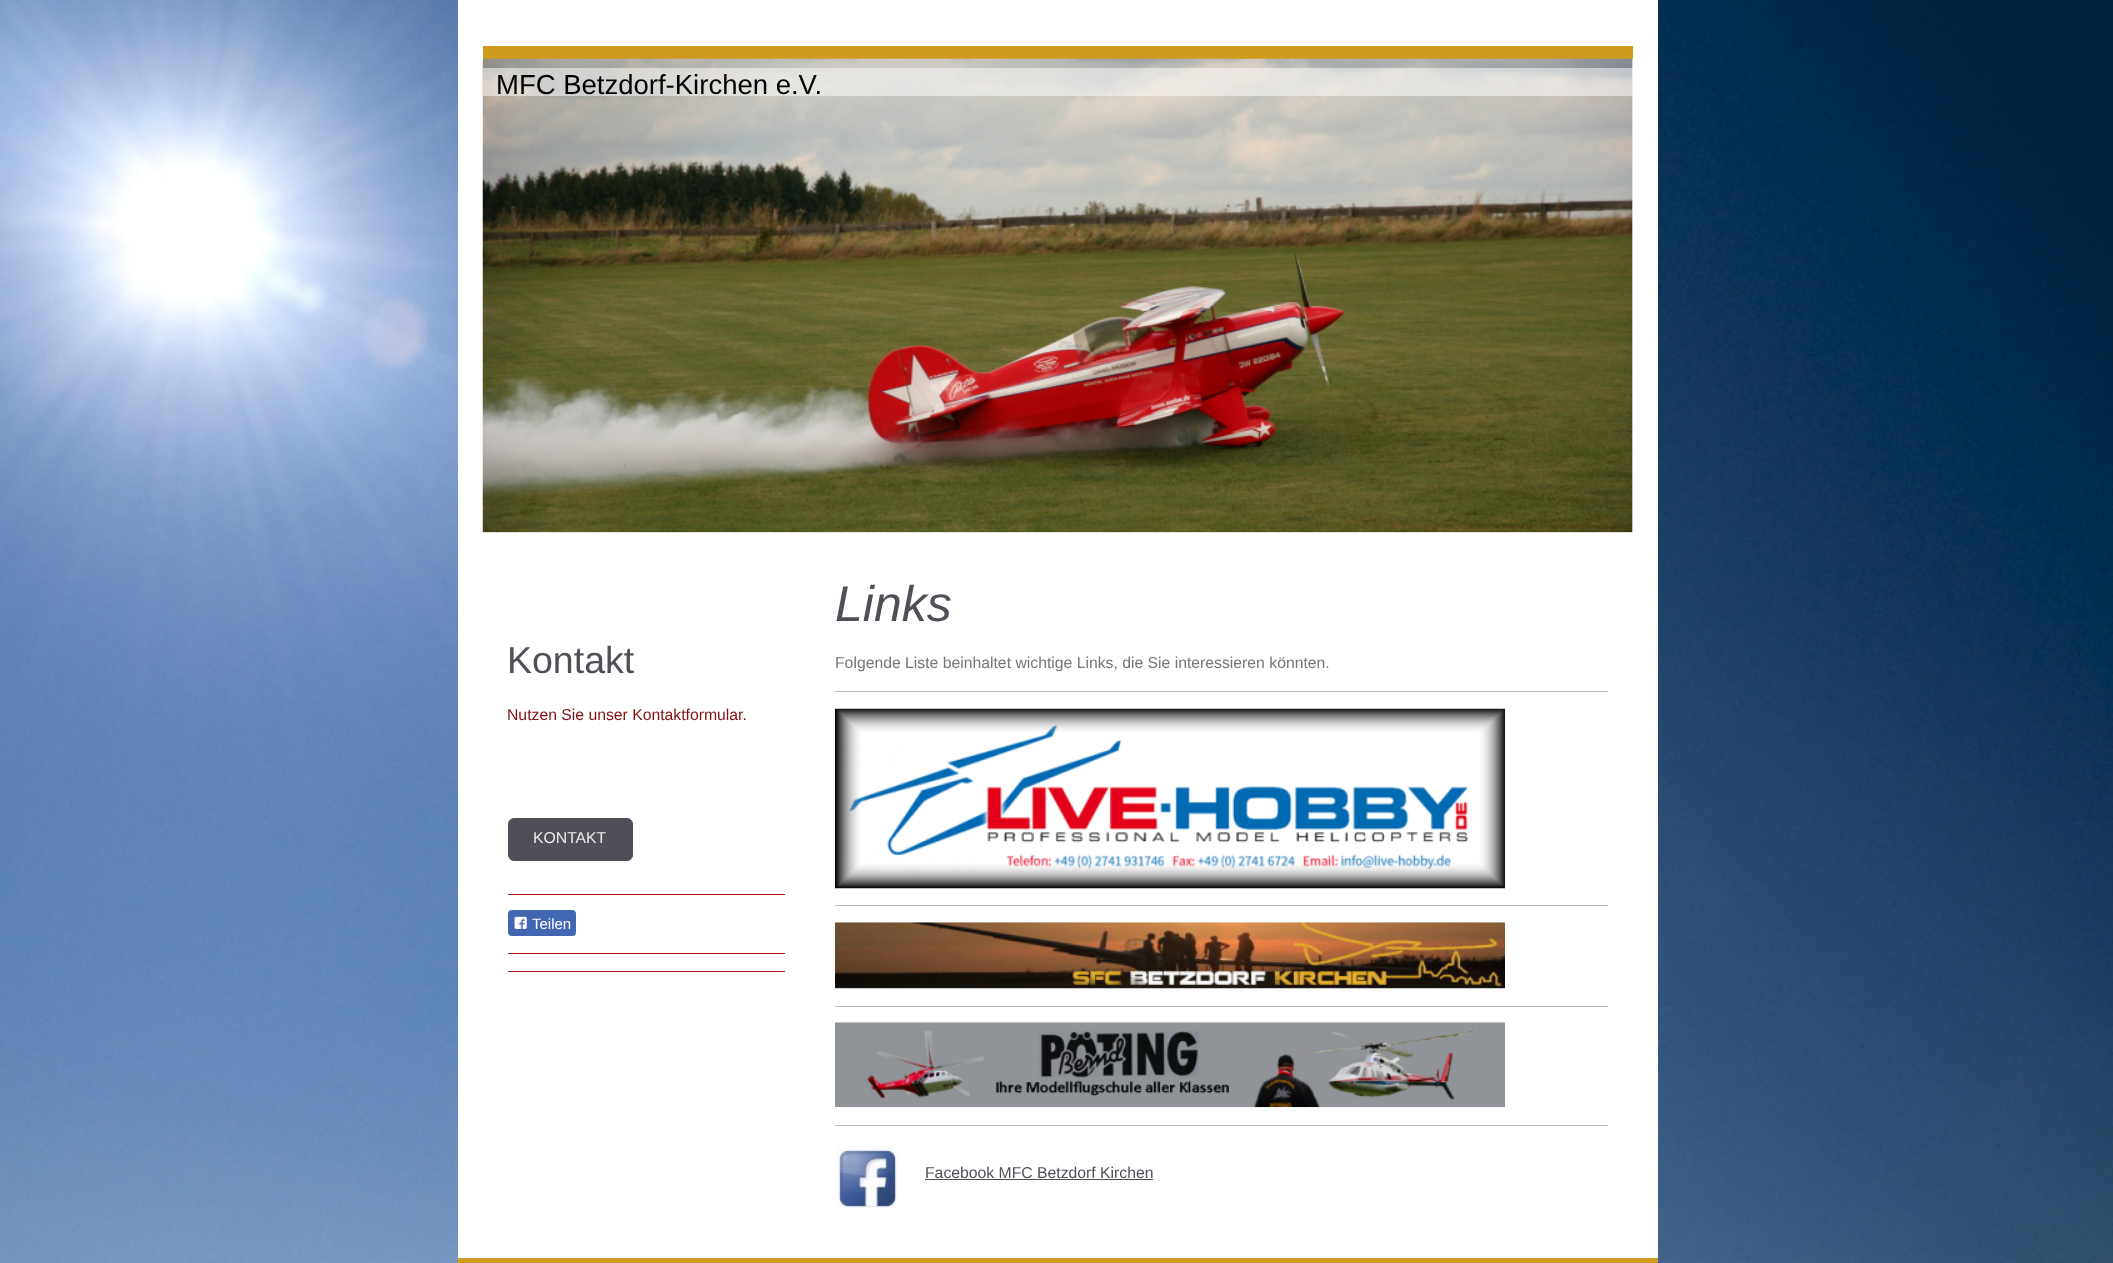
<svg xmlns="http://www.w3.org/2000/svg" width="2113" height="1263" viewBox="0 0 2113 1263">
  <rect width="100%" height="100%" fill="#ffffff"/>
  <image x="0" y="0" width="2113" height="1263" href="img1.png"/>
  <rect x="458" y="0" width="1200" height="1258" fill="#ffffff"/>
  <rect x="483" y="46" width="1150" height="13" fill="#ce9c1c"/>
  <rect x="483" y="59" width="1150" height="474" fill="#eeeeee"/>
  <image x="482" y="58" width="1151" height="475" href="img2.png"/>
  <rect x="483" y="68" width="1150" height="28" fill="#ffffff" fill-opacity="0.5"/>
  <text x="496" y="94" font-family="Liberation Sans" font-size="27.5" fill="#000000">MFC Betzdorf-Kirchen e.V.</text>
  <text x="507" y="673" font-family="Liberation Sans" font-size="37.5" fill="#4f4f58">Kontakt</text>
  <text x="507" y="720" font-family="Liberation Sans" font-size="15.75" fill="#811211">Nutzen Sie unser Kontaktformular.</text>
  <rect x="508.5" y="818.5" width="124" height="42" rx="5.5" fill="#4f4f58" stroke="#4f4f58"/>
  <text x="533" y="843" font-family="Liberation Sans" font-size="15.75" fill="#ededee">KONTAKT</text>
  <rect x="508" y="894" width="277" height="1" fill="#ac1614"/>
  <rect x="508" y="910" width="68" height="26" rx="4" fill="#4267b2"/>
  <image x="514" y="916" width="13" height="13" href="img3.png"/>
  <text x="532" y="929" font-family="Liberation Sans" font-size="15" fill="#ffffff">Teilen</text>
  <rect x="508" y="953" width="277" height="1" fill="#ac1614"/>
  <rect x="508" y="971" width="277" height="1" fill="#ac1614"/>
  <text x="835" y="621" font-family="Liberation Sans" font-size="50" font-style="italic" fill="#4f4f58">Links</text>
  <text x="835" y="668" font-family="Liberation Sans" font-size="15.75" fill="#757575">Folgende Liste beinhaltet wichtige Links, die Sie interessieren könnten.</text>
  <rect x="835" y="691" width="773" height="1" fill="#bababa"/>
  <image x="835" y="708" width="670" height="181" href="img4.png"/>
  <rect x="835" y="905" width="773" height="1" fill="#bababa"/>
  <image x="835" y="922" width="670" height="67" href="img5.png"/>
  <rect x="835" y="1006" width="773" height="1" fill="#bababa"/>
  <image x="835" y="1022" width="670" height="86" href="img6.png"/>
  <rect x="835" y="1125" width="773" height="1" fill="#bababa"/>
  <image x="835" y="1146" width="65" height="62" href="img7.png"/>
  <text x="925" y="1178" font-family="Liberation Sans" font-size="15.75" fill="#4f4f58">Facebook MFC Betzdorf Kirchen</text>
  <rect x="925" y="1179" width="228" height="1" fill="#4f4f58"/>
  <rect x="458" y="1258" width="1200" height="5" fill="#ce9c1c"/>
</svg>
